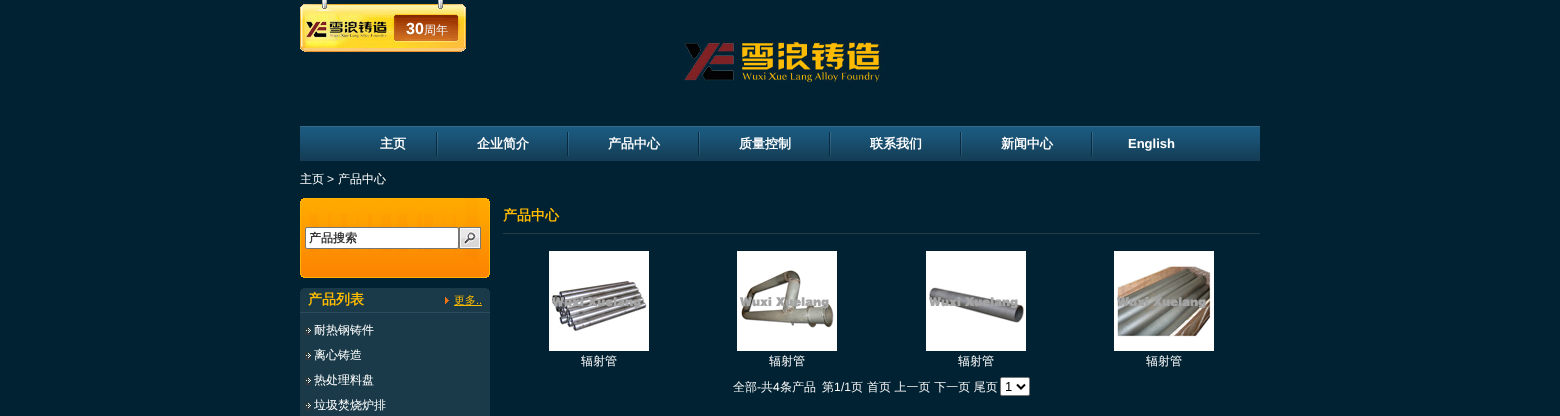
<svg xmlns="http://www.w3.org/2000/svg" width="1560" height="416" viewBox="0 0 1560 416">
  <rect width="100%" height="100%" fill="#002233"/>
  <image x="300" y="0" width="166" height="52" href="img1.png"/>
  <text x="406" y="34" font-family="Liberation Sans" font-size="16" font-weight="bold" fill="#ffffff">30</text>
  <text x="424" y="34" font-family="WenQuanYi Zen Hei" font-size="12" font-weight="500" fill="#f3f3f3">周年</text>
  <image x="684" y="42" width="201" height="40" href="img2.png"/>
  <image x="300" y="126" width="960" height="35" href="img3.png"/>
  <text x="380" y="148" font-family="WenQuanYi Zen Hei" font-size="13" font-weight="bold" fill="#ffffff">主页</text>
  <image x="436" y="132" width="2" height="24" href="img4.png"/>
  <text x="477" y="148" font-family="WenQuanYi Zen Hei" font-size="13" font-weight="bold" fill="#ffffff">企业简介</text>
  <image x="567" y="132" width="2" height="24" href="img4.png"/>
  <text x="608" y="148" font-family="WenQuanYi Zen Hei" font-size="13" font-weight="bold" fill="#ffffff">产品中心</text>
  <image x="698" y="132" width="2" height="24" href="img4.png"/>
  <text x="739" y="148" font-family="WenQuanYi Zen Hei" font-size="13" font-weight="bold" fill="#ffffff">质量控制</text>
  <image x="829" y="132" width="2" height="24" href="img4.png"/>
  <text x="870" y="148" font-family="WenQuanYi Zen Hei" font-size="13" font-weight="bold" fill="#ffffff">联系我们</text>
  <image x="960" y="132" width="2" height="24" href="img4.png"/>
  <text x="1001" y="148" font-family="WenQuanYi Zen Hei" font-size="13" font-weight="bold" fill="#ffffff">新闻中心</text>
  <image x="1091" y="132" width="2" height="24" href="img4.png"/>
  <text x="1128" y="148" font-family="Liberation Sans" font-size="13" font-weight="bold" fill="#ffffff">English</text>
  <text x="300" y="183" font-family="WenQuanYi Zen Hei" font-size="12" font-weight="500" fill="#ffffff">主页</text>
  <text x="327" y="183" font-family="Liberation Sans" font-size="12" fill="#f3f3f3">&gt;</text>
  <text x="338" y="183" font-family="WenQuanYi Zen Hei" font-size="12" font-weight="500" fill="#ffffff">产品中心</text>
  <image x="300" y="198" width="190" height="80" href="img5.png"/>
  <rect x="305.5" y="227.5" width="153" height="21" rx="1.5" fill="#ffffff" stroke="#767676"/>
  <text x="309" y="242" font-family="WenQuanYi Zen Hei" font-size="12" font-weight="bold" fill="#333333">产品搜索</text>
  <image x="459" y="227" width="22" height="22" href="img6.png"/>
  <image x="300" y="288" width="190" height="24" href="img7.png"/>
  <text x="308" y="304" font-family="WenQuanYi Zen Hei" font-size="14" font-weight="bold" fill="#ffbb00">产品列表</text>
  <image x="445" y="297" width="4" height="7" href="img8.png"/>
  <rect x="454" y="305" width="28" height="1" fill="#ffbb00"/>
  <text x="454" y="304" font-family="WenQuanYi Zen Hei" font-size="11" font-weight="500" fill="#ffbb00">更多</text>
  <text x="476" y="304" font-family="Liberation Sans" font-size="11" fill="#ffbb00">..</text>
  <rect x="300" y="312" width="190" height="1" fill="#2e4b5d"/>
  <rect x="300" y="313" width="190" height="5" fill="#1a3a49"/>
  <rect x="300" y="318" width="190" height="25" fill="#1a3a49"/>
  <image x="305" y="327" width="6" height="8" href="img9.png"/>
  <text x="314" y="334" font-family="WenQuanYi Zen Hei" font-size="12" font-weight="500" fill="#ffffff">耐热钢铸件</text>
  <rect x="300" y="343" width="190" height="25" fill="#1a3a49"/>
  <image x="305" y="352" width="6" height="8" href="img9.png"/>
  <text x="314" y="359" font-family="WenQuanYi Zen Hei" font-size="12" font-weight="500" fill="#ffffff">离心铸造</text>
  <rect x="300" y="368" width="190" height="25" fill="#1a3a49"/>
  <image x="305" y="377" width="6" height="8" href="img9.png"/>
  <text x="314" y="384" font-family="WenQuanYi Zen Hei" font-size="12" font-weight="500" fill="#ffffff">热处理料盘</text>
  <rect x="300" y="393" width="190" height="23" fill="#1a3a49"/>
  <image x="305" y="402" width="6" height="8" href="img9.png"/>
  <text x="314" y="409" font-family="WenQuanYi Zen Hei" font-size="12" font-weight="500" fill="#ffffff">垃圾焚烧炉排</text>
  <text x="503" y="220" font-family="WenQuanYi Zen Hei" font-size="14" font-weight="bold" fill="#ffbb00">产品中心</text>
  <rect x="503" y="233" width="757" height="1" fill="#243b49"/>
  <image x="549" y="251" width="100" height="100" href="img10.png"/>
  <text x="581" y="365" font-family="WenQuanYi Zen Hei" font-size="12" font-weight="500" fill="#ffffff">辐射管</text>
  <image x="737" y="251" width="100" height="100" href="img11.png"/>
  <text x="769" y="365" font-family="WenQuanYi Zen Hei" font-size="12" font-weight="500" fill="#ffffff">辐射管</text>
  <image x="926" y="251" width="100" height="100" href="img12.png"/>
  <text x="958" y="365" font-family="WenQuanYi Zen Hei" font-size="12" font-weight="500" fill="#ffffff">辐射管</text>
  <image x="1114" y="251" width="100" height="100" href="img13.png"/>
  <text x="1146" y="365" font-family="WenQuanYi Zen Hei" font-size="12" font-weight="500" fill="#ffffff">辐射管</text>
  <text x="733" y="391" font-family="WenQuanYi Zen Hei" font-size="12" font-weight="500" fill="#f3f3f3">全部</text>
  <text x="757" y="391" font-family="Liberation Sans" font-size="12" fill="#f3f3f3">-</text>
  <text x="761" y="391" font-family="WenQuanYi Zen Hei" font-size="12" font-weight="500" fill="#f3f3f3">共</text>
  <text x="773" y="391" font-family="Liberation Sans" font-size="12" fill="#ffffff">4</text>
  <text x="780" y="391" font-family="WenQuanYi Zen Hei" font-size="12" font-weight="500" fill="#f3f3f3">条产品</text>
  <text x="822" y="391" font-family="WenQuanYi Zen Hei" font-size="12" font-weight="500" fill="#f3f3f3">第</text>
  <text x="834" y="391" font-family="Liberation Sans" font-size="12" fill="#ffffff">1</text>
  <text x="841" y="391" font-family="Liberation Sans" font-size="12" fill="#f3f3f3">/1</text>
  <text x="851" y="391" font-family="WenQuanYi Zen Hei" font-size="12" font-weight="500" fill="#f3f3f3">页</text>
  <text x="867" y="391" font-family="WenQuanYi Zen Hei" font-size="12" font-weight="500" fill="#f3f3f3">首页 上一页 下一页 尾页</text>
  <rect x="1000.5" y="377.5" width="29" height="18" rx="1.5" fill="#ffffff" stroke="#767676"/>
  <path d="M1017 384.5L1021 388.5L1025 384.5" fill="none" stroke="#000000" stroke-width="2"/>
  <text x="1005" y="391" font-family="Liberation Sans" font-size="13" fill="#000000">1</text>
</svg>
